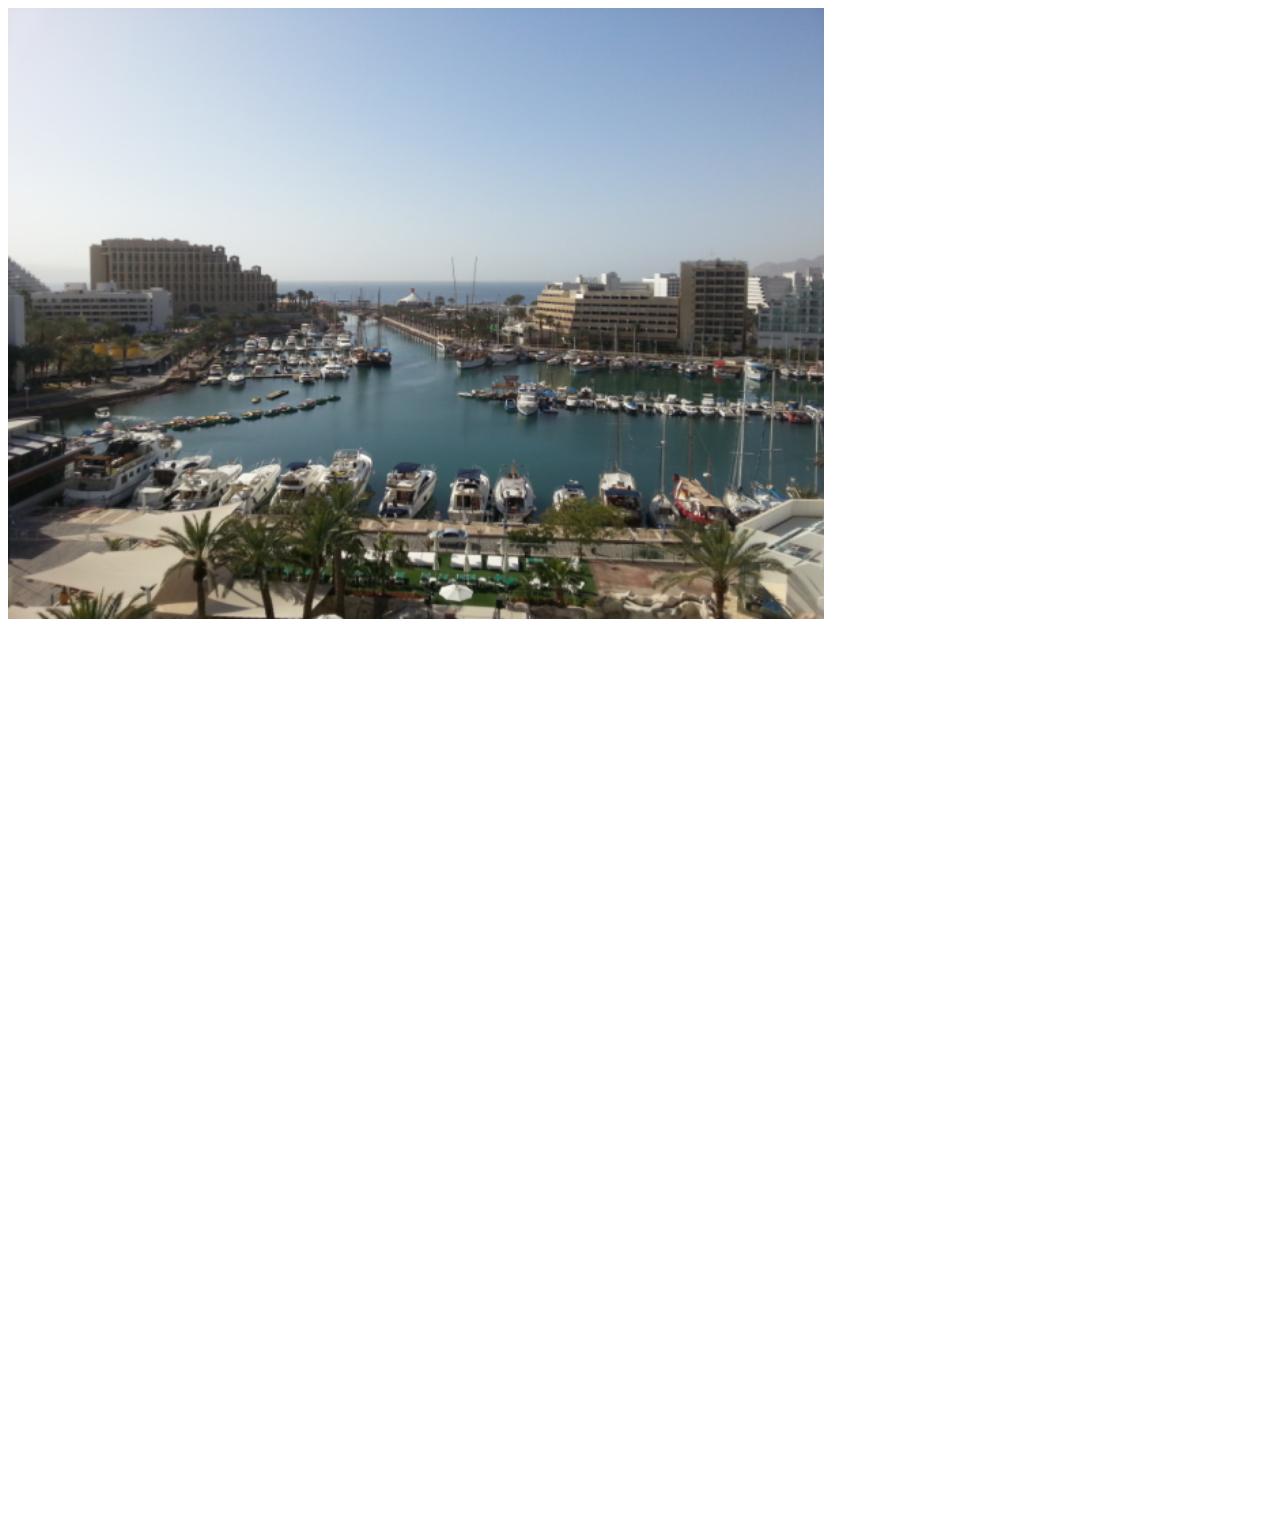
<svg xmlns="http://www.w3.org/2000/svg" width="1284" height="1540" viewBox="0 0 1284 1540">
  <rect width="100%" height="100%" fill="#ffffff"/>
  <image x="8" y="8" width="816" height="611" href="img1.png"/>
</svg>
